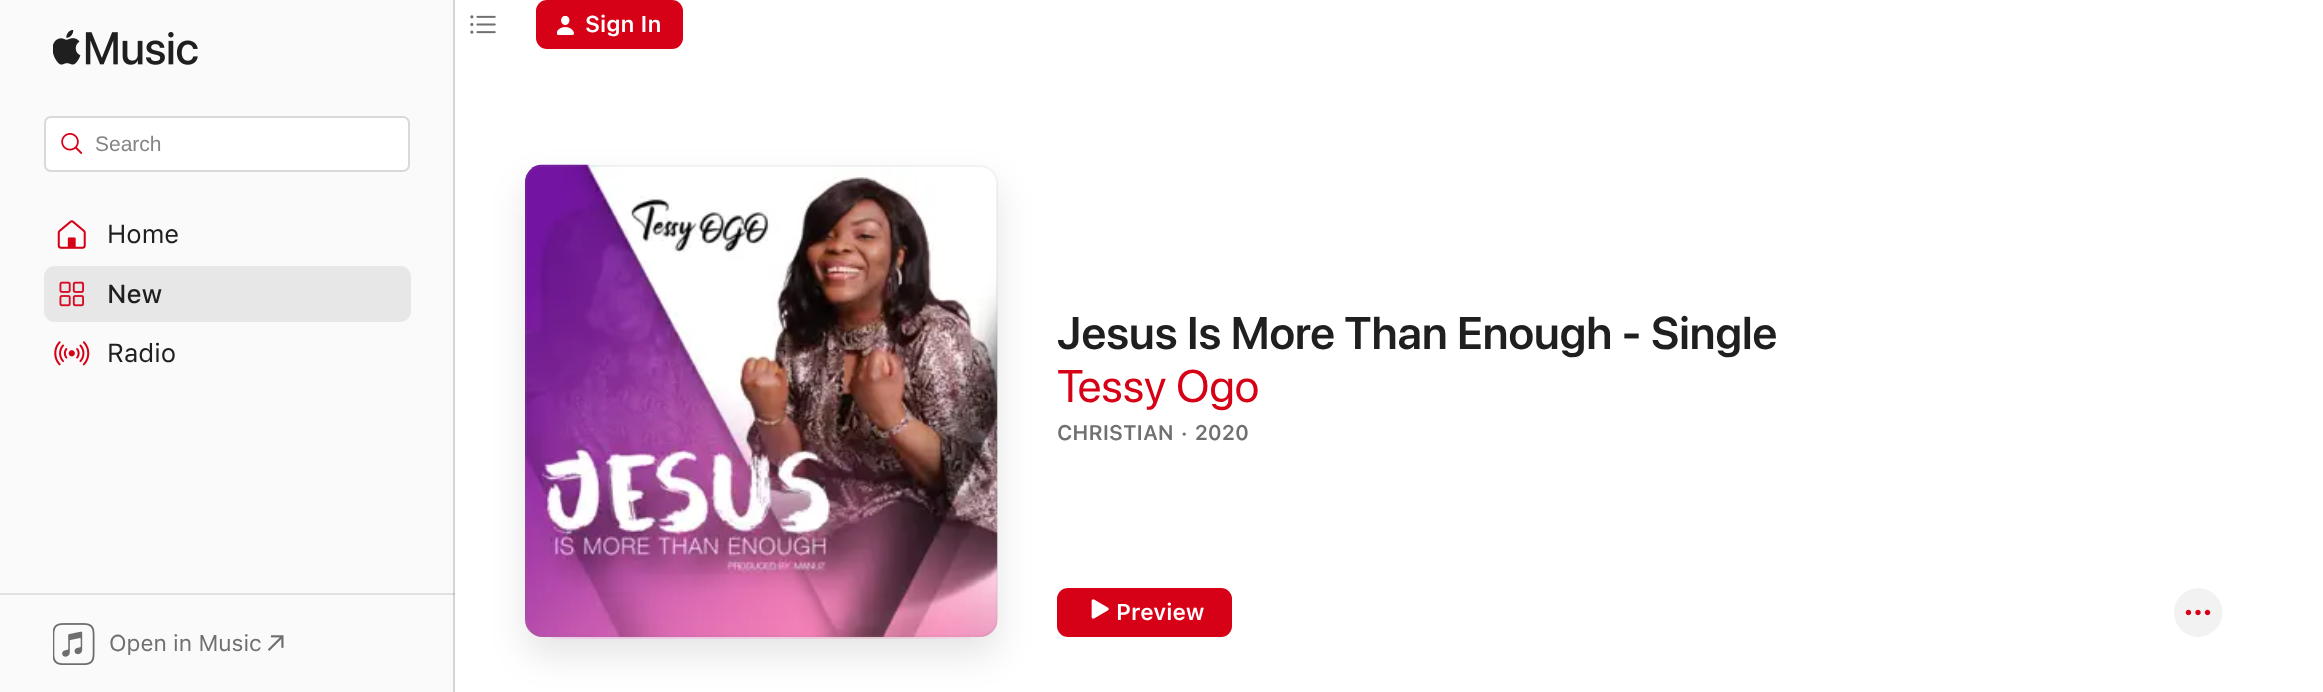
<svg xmlns="http://www.w3.org/2000/svg" width="2323" height="692" viewBox="0 0 2323 692">
  <defs>
    <filter id="blur1" x="-50%" y="-200%" width="200%" height="500%"><feGaussianBlur stdDeviation="17.5"/></filter>
  </defs>
  <rect width="100%" height="100%" fill="#ffffff"/>
  <image x="470" y="15" width="26" height="19" href="img1.png"/>
  <rect x="536" y="0" width="147" height="49" rx="11" fill="#d60017"/>
  <image x="557" y="16" width="17" height="19" href="img2.png"/>
  <text x="585" y="32" font-family="SF" font-size="22.75" font-weight="600" fill="#ffffff">Sign In</text>
  <rect x="0" y="0" width="453" height="692" fill="#fafafa"/>
  <rect x="0" y="593" width="455" height="2" fill="#e1e1e1"/>
  <rect x="453" y="0" width="2" height="692" fill="#d5d5d5"/>
  <rect x="453" y="593" width="2" height="2" fill="#c0c0c0"/>
  <image x="53" y="30" width="145" height="35" href="img3.png"/>
  <rect x="45" y="117" width="364" height="54" rx="6" fill="#ffffff" stroke="#d9d9d9" stroke-width="2"/>
  <image x="61" y="133" width="21" height="21" href="img4.png"/>
  <text x="95" y="151" font-family="Liberation Sans" font-size="21" fill="#858585">Search</text>
  <image x="57" y="220" width="29" height="29" href="img5.png"/>
  <text x="107" y="243" font-family="'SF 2'" font-size="26" fill="#1f1f1f">Home</text>
  <rect x="44" y="266" width="367" height="56" rx="11" fill="#e7e7e8"/>
  <image x="59" y="281" width="25" height="26" href="img6.png"/>
  <text x="107" y="303" font-family="SF" font-size="26" font-weight="500" fill="#1f1f1f">New</text>
  <image x="54" y="341" width="36" height="25" href="img7.png"/>
  <text x="107" y="362" font-family="'SF 2'" font-size="26" fill="#1f1f1f">Radio</text>
  <image x="53" y="623" width="42" height="42" href="img8.png"/>
  <text x="109" y="651" font-family="'SF 2'" font-size="22.75" fill="#707070">Open in Music</text>
  <image x="268" y="635" width="16" height="16" href="img9.png"/>
  <rect x="525" y="182" width="473" height="473" rx="18" fill="#000000" fill-opacity="0.1" filter="url(#blur1)"/>
  <image x="525" y="164" width="473" height="473" href="img10.png"/>
  <rect x="526" y="166" width="471" height="470" rx="17" fill="none" stroke="#808080" stroke-opacity="0.1" stroke-width="2"/>
  <image x="551" y="637" width="420" height="2" href="img11.png"/>
  <text x="1057" y="349" font-family="'SF 2'" font-size="45.5" font-weight="600" fill="#1f1f1f">Jesus Is More Than Enough - Single</text>
  <text x="1057" y="402" font-family="SF" font-size="45.5" fill="#d60017">Tessy Ogo</text>
  <text x="1057" y="440" font-family="SF" font-size="21" font-weight="600" fill="#707070">CHRISTIAN · 2020</text>
  <rect x="1057" y="588" width="175" height="49" rx="11" fill="#d60017"/>
  <image x="1091" y="599" width="18" height="20" href="img12.png"/>
  <text x="1116" y="620" font-family="SF" font-size="22.75" font-weight="600" fill="#ffffff">Preview</text>
  <image x="2174" y="588" width="49" height="49" href="img13.png"/>
</svg>
